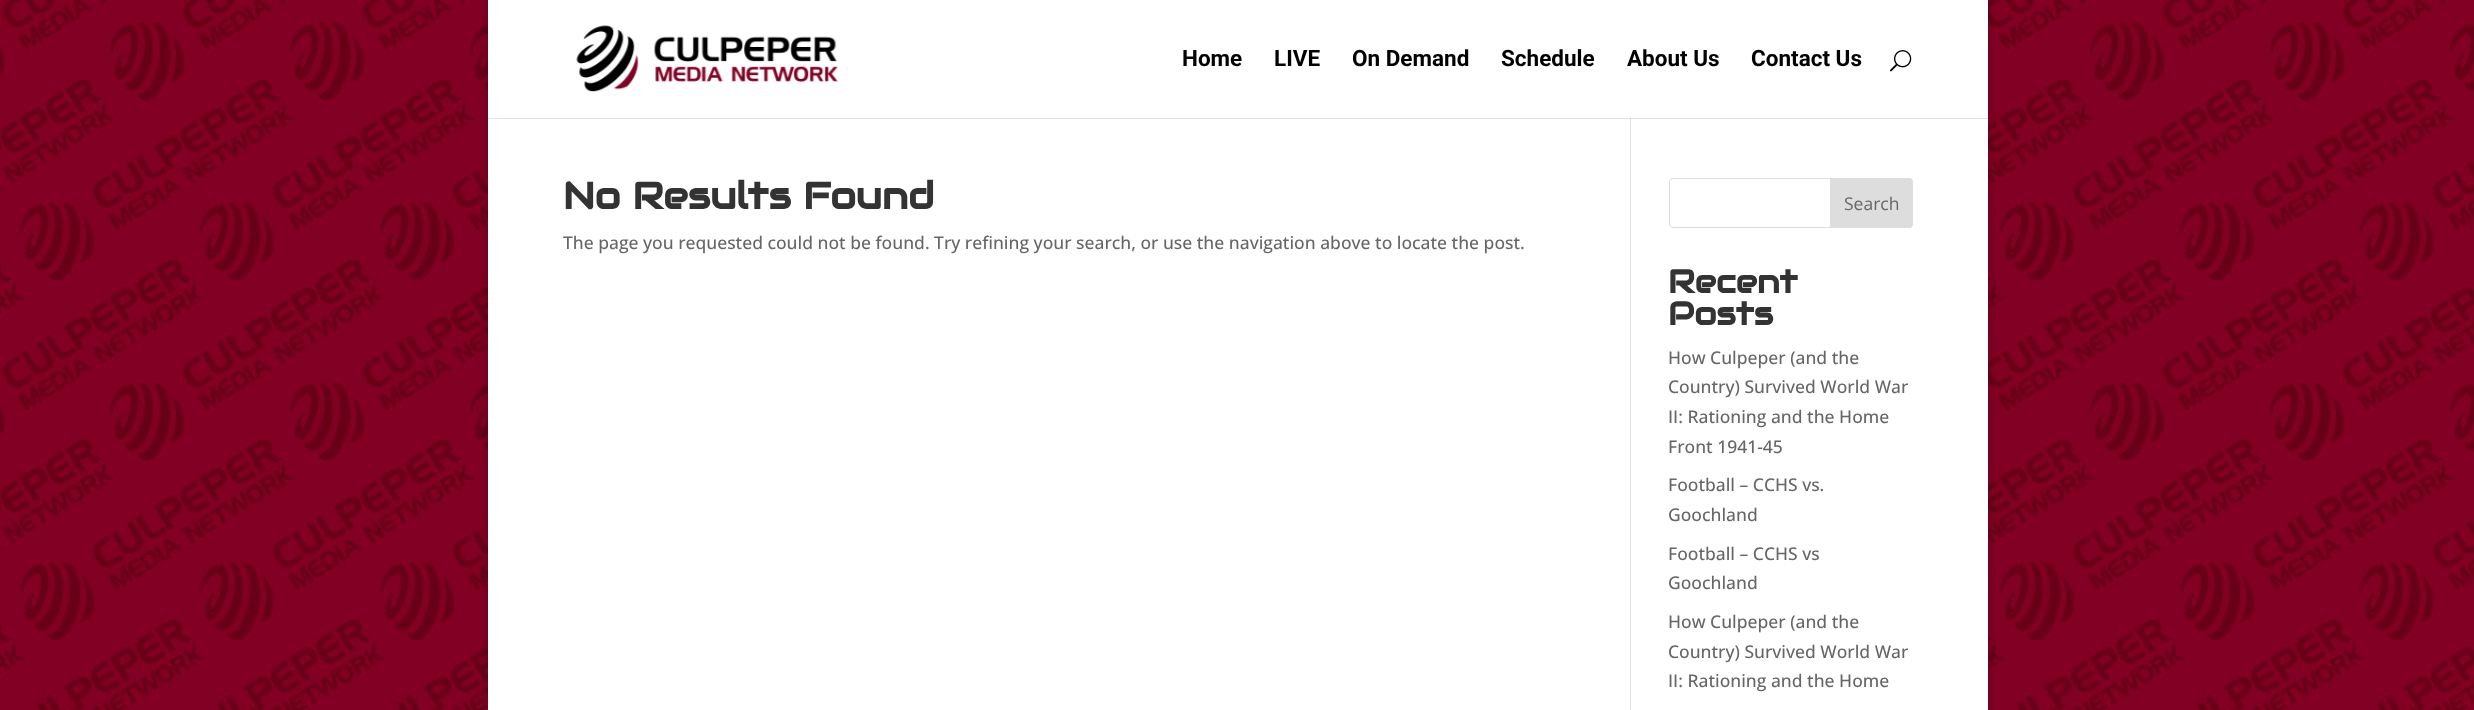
<svg xmlns="http://www.w3.org/2000/svg" width="2474" height="710" viewBox="0 0 2474 710">
  <defs>
    <filter id="blur1" x="-50%" y="-200%" width="200%" height="500%"><feGaussianBlur stdDeviation="6"/></filter>
  </defs>
  <rect width="100%" height="100%" fill="#ffffff"/>
  <image x="0" y="0" width="2474" height="710" href="img1.png"/>
  <rect x="488" y="-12" width="1500" height="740" fill="#000000" fill-opacity="0.2" filter="url(#blur1)"/>
  <rect x="488" y="0" width="1500" height="710" fill="#ffffff"/>
  <rect x="1630" y="118" width="1" height="592" fill="#e2e2e2"/>
  <path d="M488 118V119H1988V1V118Z" fill="#000000" fill-opacity="0.1"/>
  <image x="576" y="25" width="262" height="67" href="img2.png"/>
  <text x="1182" y="66" font-family="Roboto" font-size="22.5" font-weight="bold" fill="#000000">Home</text>
  <text x="1274" y="66" font-family="Roboto" font-size="22.5" font-weight="bold" fill="#000000">LIVE</text>
  <text x="1352" y="66" font-family="Roboto" font-size="22.5" font-weight="bold" fill="#000000">On Demand</text>
  <text x="1501" y="66" font-family="Roboto" font-size="22.5" font-weight="bold" fill="#000000">Schedule</text>
  <text x="1627" y="66" font-family="Roboto" font-size="22.5" font-weight="bold" fill="#000000">About Us</text>
  <text x="1751" y="66" font-family="Roboto" font-size="22.5" font-weight="bold" fill="#000000">Contact Us</text>
  <image x="1890" y="50" width="22" height="22" href="img3.png"/>
  <text x="563" y="209" font-family="Audiowide" font-size="37.5" font-weight="bold" fill="#333333">No Results Found</text>
  <text x="563" y="249" font-family="Open Sans" font-size="17.5" font-weight="500" fill="#666666">The page you requested could not be found. Try refining your search, or use the navigation above to locate the post.</text>
  <rect x="1669.5" y="178.5" width="243" height="49" rx="3.5" fill="none" stroke="#dddddd"/>
  <path d="M1830.5 178.5H1909C1911 178.5 1912.5 180 1912.5 182V224C1912.5 226 1911 227.5 1909 227.5H1830.5Z" fill="#dddddd" stroke="#dddddd"/>
  <text x="1844" y="210" font-family="Open Sans" font-size="17.5" fill="#666666">Search</text>
  <text x="1668" y="293" font-family="Audiowide" font-size="32.5" font-weight="bold" fill="#333333">Recent</text>
  <text x="1668" y="325" font-family="Audiowide" font-size="32.5" font-weight="bold" fill="#333333">Posts</text>
  <text x="1668" y="364" font-family="Open Sans" font-size="17.5" font-weight="500" fill="#666666">How Culpeper (and the</text>
  <text x="1668" y="393" font-family="Open Sans" font-size="17.5" font-weight="500" fill="#666666">Country) Survived World War</text>
  <text x="1668" y="423" font-family="Open Sans" font-size="17.5" font-weight="500" fill="#666666">II: Rationing and the Home</text>
  <text x="1668" y="453" font-family="Open Sans" font-size="17.5" font-weight="500" fill="#666666">Front 1941-45</text>
  <text x="1668" y="491" font-family="Open Sans" font-size="17.5" font-weight="500" fill="#666666">Football – CCHS vs.</text>
  <text x="1668" y="521" font-family="Open Sans" font-size="17.5" font-weight="500" fill="#666666">Goochland</text>
  <text x="1668" y="560" font-family="Open Sans" font-size="17.5" font-weight="500" fill="#666666">Football – CCHS vs</text>
  <text x="1668" y="589" font-family="Open Sans" font-size="17.5" font-weight="500" fill="#666666">Goochland</text>
  <text x="1668" y="628" font-family="Open Sans" font-size="17.5" font-weight="500" fill="#666666">How Culpeper (and the</text>
  <text x="1668" y="658" font-family="Open Sans" font-size="17.5" font-weight="500" fill="#666666">Country) Survived World War</text>
  <text x="1668" y="687" font-family="Open Sans" font-size="17.5" font-weight="500" fill="#666666">II: Rationing and the Home</text>
</svg>
